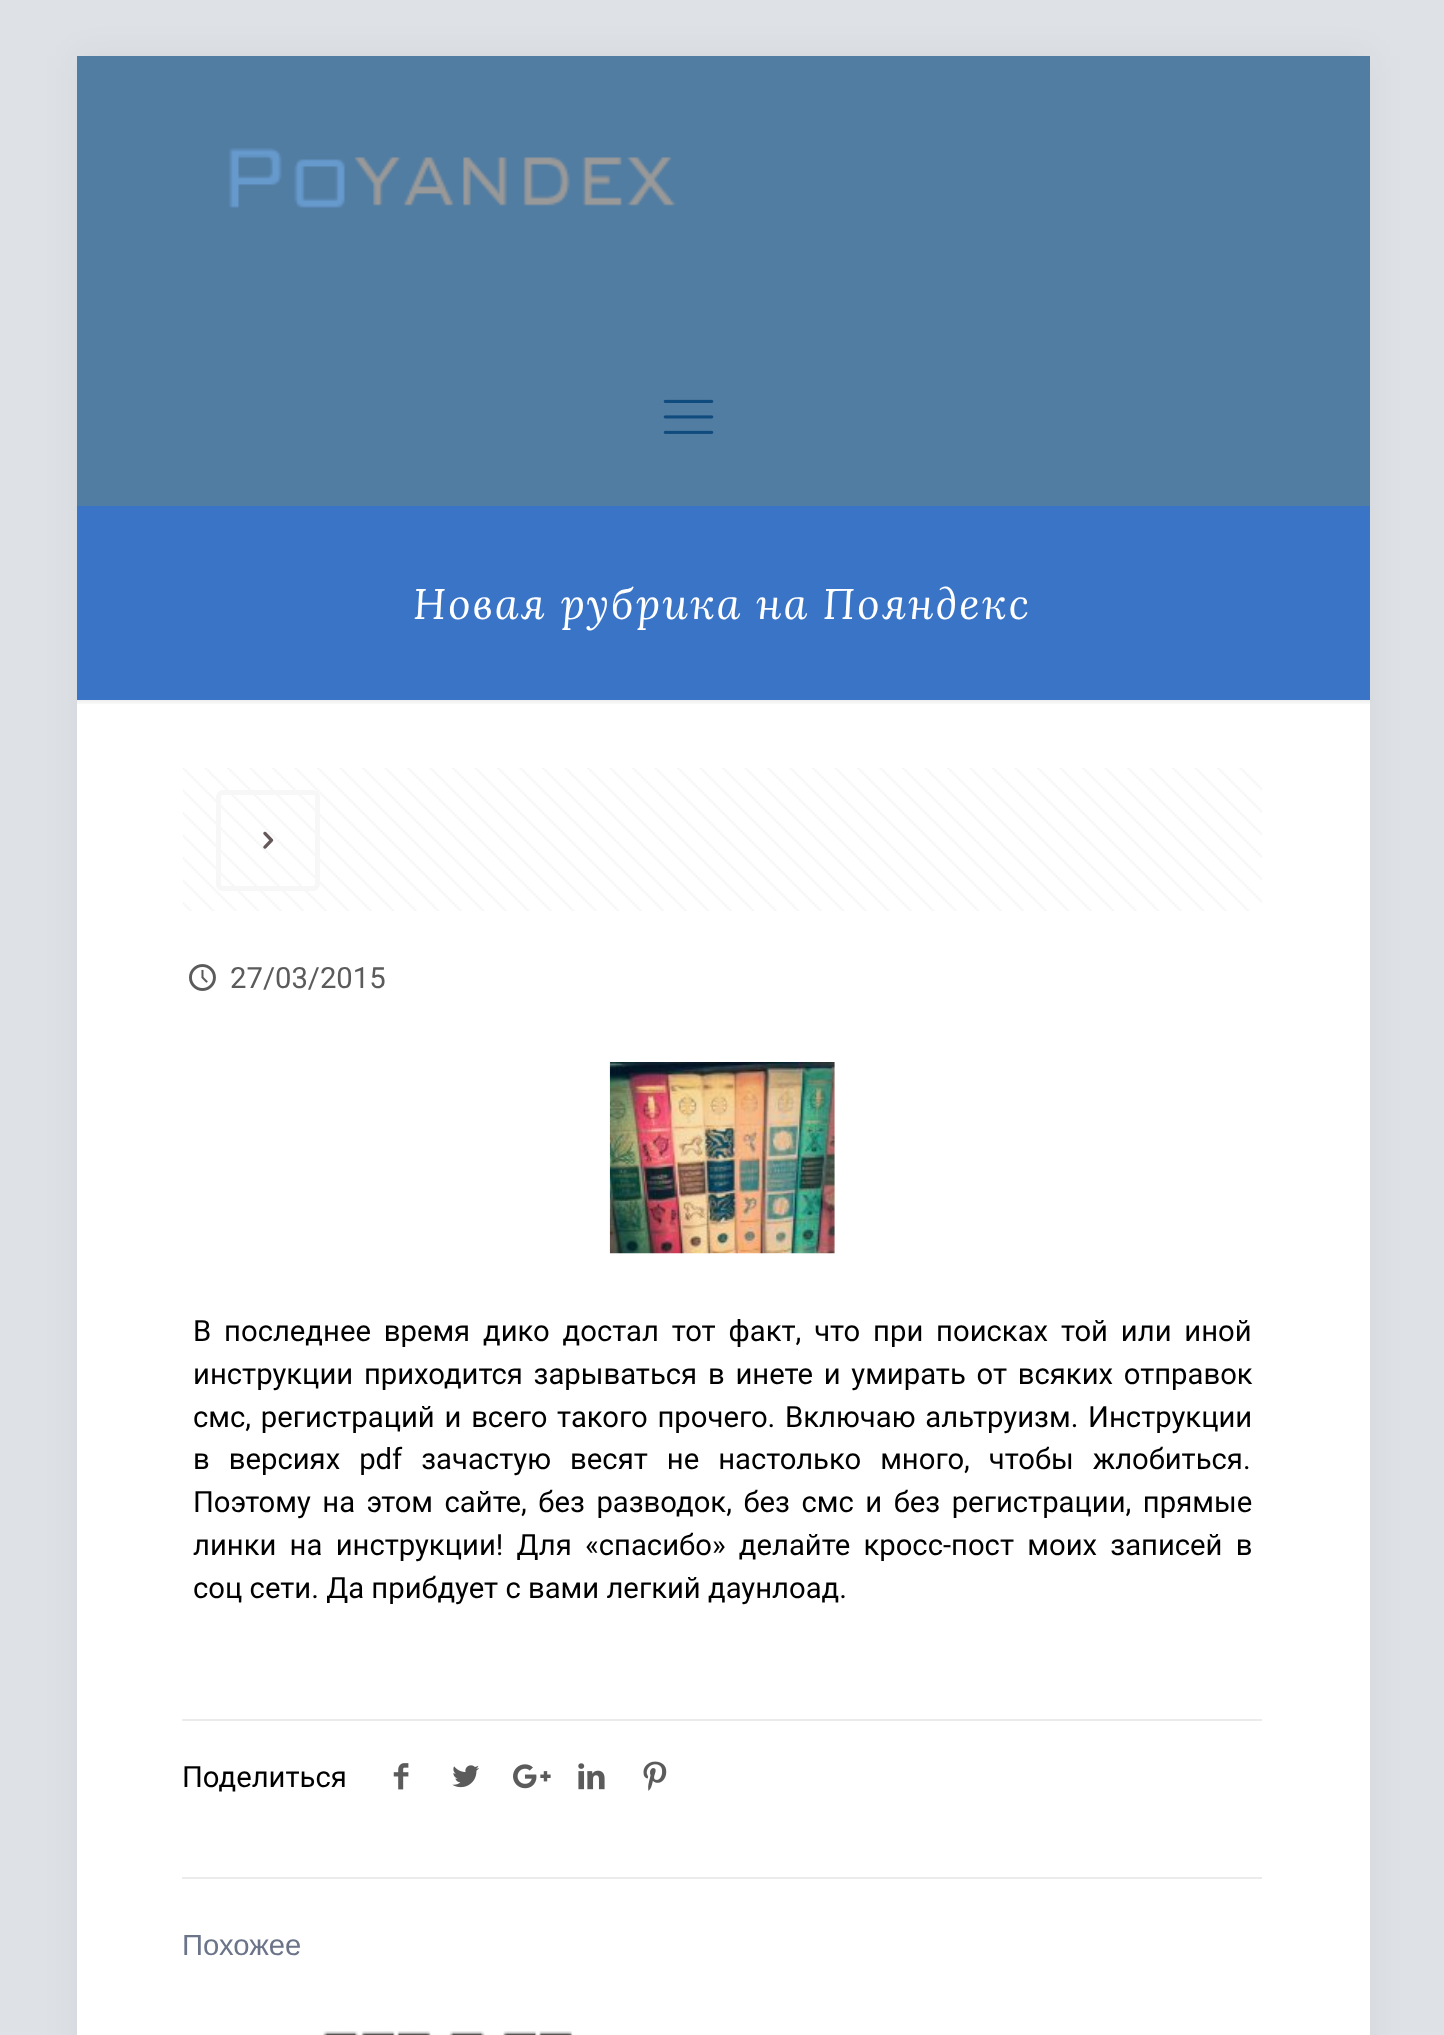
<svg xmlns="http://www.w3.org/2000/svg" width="1444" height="2035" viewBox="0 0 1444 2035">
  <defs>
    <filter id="blur1" x="-50%" y="-200%" width="200%" height="500%"><feGaussianBlur stdDeviation="17"/></filter>
  </defs>
  <rect width="100%" height="100%" fill="#dee2e7"/>
  <rect x="77" y="56" width="1293" height="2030" fill="#000000" fill-opacity="0.06" filter="url(#blur1)"/>
  <rect x="77" y="56" width="1293" height="450" fill="#527da2"/>
  <image x="229" y="148" width="447" height="60" href="img1.png"/>
  <image x="663" y="399" width="51" height="35" href="img2.png"/>
  <rect x="77" y="506" width="1293" height="194" fill="#3974c7"/>
  <text x="413" y="619" font-family="Lora" font-size="42.75" font-style="italic" letter-spacing="2.25" fill="#ffffff">Новая рубрика на Пояндекс</text>
  <rect x="77" y="700" width="1293" height="1335" fill="#ffffff"/>
  <image x="77" y="700" width="1293" height="4" href="img3.png"/>
  <image x="183" y="768" width="1079" height="143" href="img4.png"/>
  <rect x="218.5" y="792.5" width="99" height="96" rx="4.5" fill="none" stroke="#f7f7f7" stroke-width="5"/>
  <image x="263" y="831" width="11" height="18" href="img5.png"/>
  <image x="189" y="964" width="27" height="27" href="img6.png"/>
  <text x="230" y="988" font-family="Roboto" font-size="29.25" fill="#5b5b5b">27/03/2015</text>
  <image x="609" y="1062" width="226" height="192" href="img7.png"/>
  <text x="193" y="1341" word-spacing="5.6" font-family="Roboto" font-size="29.25" fill="#000000">В последнее время дико достал тот факт, что при поисках той или иной</text>
  <text x="193" y="1384" word-spacing="3.5" font-family="Roboto" font-size="29.25" fill="#000000">инструкции приходится зарываться в инете и умирать от всяких отправок</text>
  <text x="193" y="1427" word-spacing="2.5" font-family="Roboto" font-size="29.25" fill="#000000">смс, регистраций и всего такого прочего. Включаю альтруизм. Инструкции</text>
  <text x="193" y="1469" word-spacing="11.75" font-family="Roboto" font-size="29.25" fill="#000000">в версиях pdf зачастую весят не настолько много, чтобы жлобиться.</text>
  <text x="193" y="1512" word-spacing="4.25" font-family="Roboto" font-size="29.25" fill="#000000">Поэтому на этом сайте, без разводок, без смс и без регистрации, прямые</text>
  <text x="193" y="1555" word-spacing="6" font-family="Roboto" font-size="29.25" fill="#000000">линки на инструкции! Для «спасибо» делайте кросс-пост моих записей в</text>
  <text x="193" y="1598" font-family="Roboto" font-size="29.25" fill="#000000">соц сети. Да прибдует с вами легкий даунлоад.</text>
  <rect x="182" y="1719" width="1080" height="2" fill="#ebebeb"/>
  <text x="182" y="1787" font-family="Roboto" font-size="29.25" fill="#000000">Поделиться</text>
  <image x="393" y="1763" width="16" height="27" href="img8.png"/>
  <image x="452" y="1765" width="27" height="23" href="img9.png"/>
  <image x="513" y="1764" width="38" height="25" href="img10.png"/>
  <image x="578" y="1763" width="27" height="27" href="img11.png"/>
  <image x="643" y="1761" width="24" height="30" href="img12.png"/>
  <rect x="182" y="1877" width="1080" height="2" fill="#ebebeb"/>
  <text x="182" y="1955" font-family="Liberation Sans" font-size="29.25" fill="#6b7489">Похожее</text>
  <image x="323" y="2031" width="250" height="4" href="img13.png"/>
</svg>
